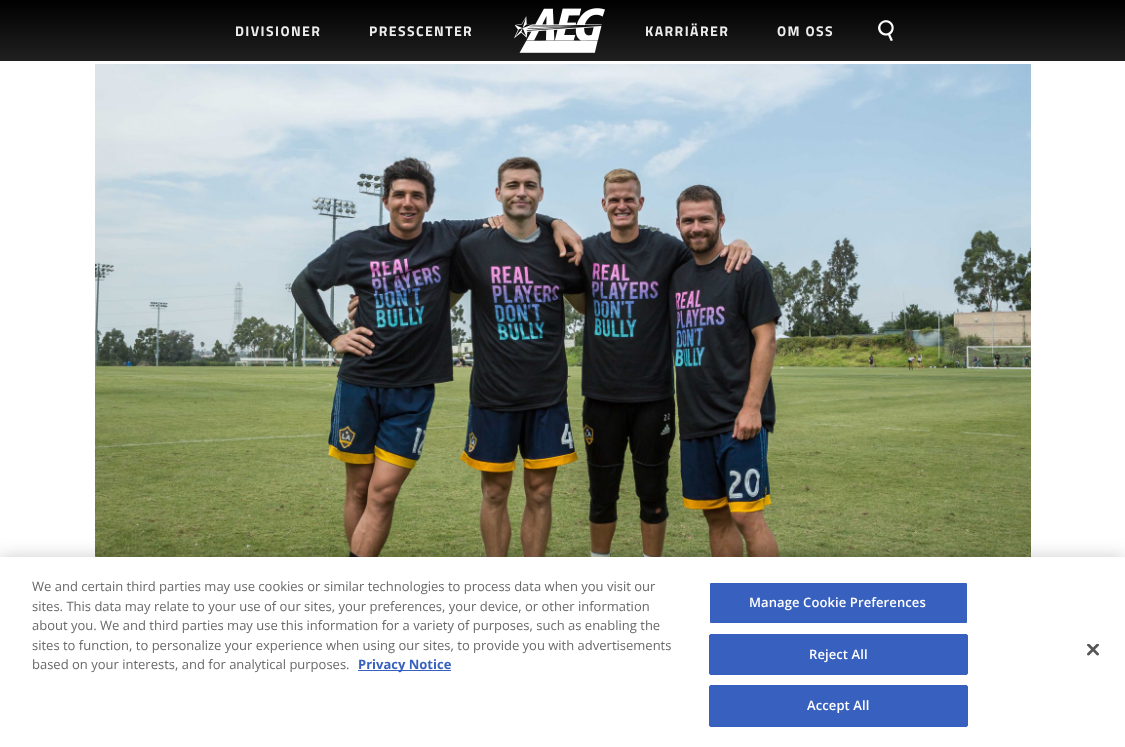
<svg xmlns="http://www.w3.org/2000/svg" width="1125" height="747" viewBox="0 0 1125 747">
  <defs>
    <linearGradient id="g1" gradientUnits="userSpaceOnUse" x1="563" y1="0" x2="563" y2="61"><stop offset="0" stop-color="#000000"/><stop offset="1" stop-color="#202020"/></linearGradient>
    <filter id="blur1" x="-50%" y="-200%" width="200%" height="500%"><feGaussianBlur stdDeviation="9"/></filter>
  </defs>
  <rect width="100%" height="100%" fill="#ffffff"/>
  <rect x="0" y="0" width="1125" height="61" fill="url(#g1)"/>
  <text x="235" y="36" font-family="Titillium Web" font-size="14" font-weight="bold" letter-spacing="1.4" fill="#ededed">DIVISIONER</text>
  <text x="369" y="36" font-family="Titillium Web" font-size="14" font-weight="bold" letter-spacing="1.4" fill="#ededed">PRESSCENTER</text>
  <image x="514" y="8" width="91" height="45" href="img1.png"/>
  <text x="645" y="36" font-family="Titillium Web" font-size="14" font-weight="bold" letter-spacing="1.4" fill="#ededed">KARRIÄRER</text>
  <text x="777" y="36" font-family="Titillium Web" font-size="14" font-weight="bold" letter-spacing="1.4" fill="#ededed">OM OSS</text>
  <image x="878" y="20" width="16" height="21" href="img2.png"/>
  <image x="95" y="64" width="936" height="493" href="img3.png"/>
  <rect x="0" y="557" width="1125" height="190" fill="#000000" fill-opacity="0.2" filter="url(#blur1)"/>
  <rect x="0" y="557" width="1125" height="190" fill="#ffffff"/>
  <text x="32" y="591" font-family="Open Sans" font-size="13" fill="#696969">We and certain third parties may use cookies or similar technologies to process data when you visit our</text>
  <text x="32" y="611" font-family="Open Sans" font-size="13" fill="#696969">sites. This data may relate to your use of our sites, your preferences, your device, or other information</text>
  <text x="32" y="630" font-family="Open Sans" font-size="13" fill="#696969">about you. We and third parties may use this information for a variety of purposes, such as enabling the</text>
  <text x="32" y="650" font-family="Open Sans" font-size="13" fill="#696969">sites to function, to personalize your experience when using our sites, to provide you with advertisements</text>
  <text x="32" y="669" font-family="Open Sans" font-size="13" fill="#696969">based on your interests, and for analytical purposes.</text>
  <rect x="358" y="670" width="93" height="1" fill="#3860be"/>
  <text x="358" y="669" font-family="Open Sans" font-size="13" font-weight="bold" fill="#3860be">Privacy Notice</text>
  <rect x="709.5" y="582.5" width="258" height="41" rx="1.5" fill="#3860be" stroke="#ffffff"/>
  <text x="749" y="607" font-family="Open Sans" font-size="13" font-weight="600" letter-spacing="0.1" fill="#ffffff">Manage Cookie Preferences</text>
  <rect x="709.5" y="634.5" width="258" height="40" rx="1.5" fill="#3860be" stroke="#3860be"/>
  <text x="809" y="659" font-family="Open Sans" font-size="13" font-weight="600" letter-spacing="0.1" fill="#ffffff">Reject All</text>
  <rect x="709.5" y="685.5" width="258" height="41" rx="1.5" fill="#3860be" stroke="#3860be"/>
  <text x="807" y="710" font-family="Open Sans" font-size="13" font-weight="600" letter-spacing="0.1" fill="#ffffff">Accept All</text>
  <image x="1087" y="644" width="12" height="12" href="img4.png"/>
</svg>
